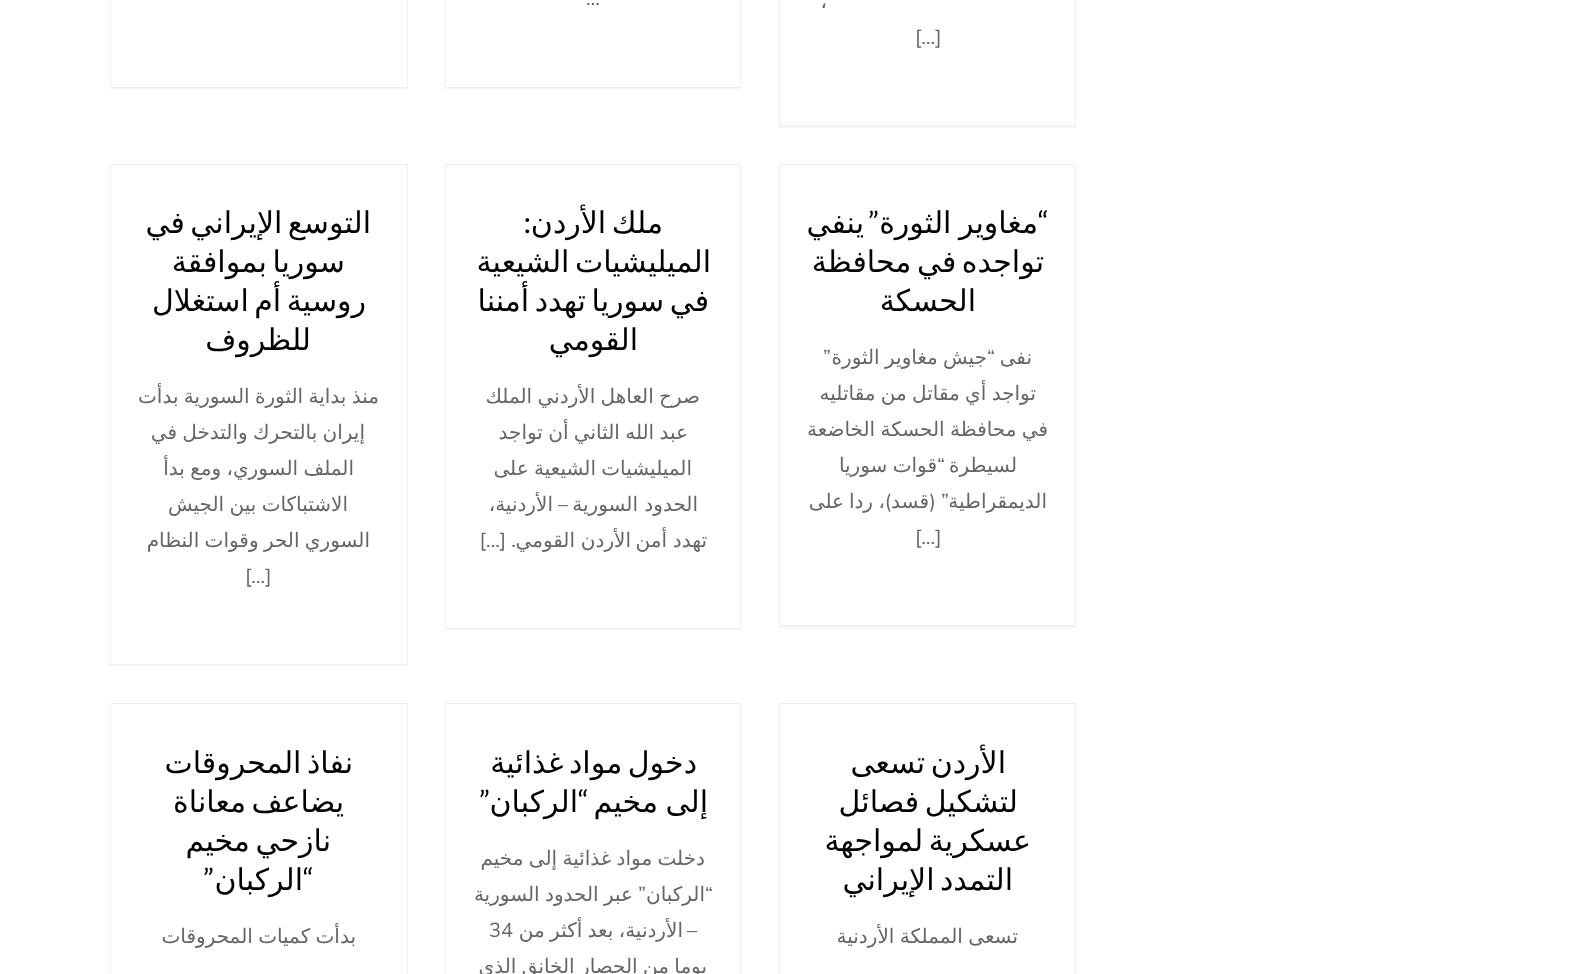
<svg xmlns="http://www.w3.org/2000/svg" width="1571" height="974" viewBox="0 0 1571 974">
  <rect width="100%" height="100%" fill="#ffffff"/>
  <rect x="779" y="126" width="297" height="2" fill="#f5f5f5"/>
  <rect x="779.5" y="-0.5" width="296" height="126" fill="none" stroke="#efefef"/>
  <text x="827" y="8" font-family="DejaVu Sans" font-size="20" direction="rtl" fill="#666666">،</text>
  <text x="915" y="44" font-family="Muli" font-size="20" fill="#666666">[…]</text>
  <rect x="445" y="88" width="296" height="1" fill="#f5f5f5"/>
  <rect x="445.5" y="-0.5" width="295" height="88" fill="none" stroke="#efefef"/>
  <text x="586" y="5" font-family="Muli" font-size="20" fill="#666666">…</text>
  <path d="M110 88V89H408V-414V88Z" fill="#f5f5f5"/>
  <rect x="110.5" y="-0.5" width="297" height="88" fill="none" stroke="#efefef"/>
  <rect x="779" y="626" width="297" height="2" fill="#f5f5f5"/>
  <rect x="779.5" y="164.5" width="296" height="461" fill="none" stroke="#efefef"/>
  <text x="1049" y="233" font-family="Lato" font-size="30" direction="rtl" fill="#000000">“</text>
  <text x="1038" y="233" word-spacing="-2" font-family="DejaVu Sans" font-size="30" direction="rtl" fill="#000000">مغاوير الثورة</text>
  <text x="879" y="233" font-family="Lato" font-size="30" direction="rtl" fill="#000000">”</text>
  <text x="864" y="233" font-family="DejaVu Sans" font-size="30" direction="rtl" fill="#000000">ينفي</text>
  <text x="1044" y="272" word-spacing="-4" font-family="DejaVu Sans" font-size="30" direction="rtl" fill="#000000">تواجده في محافظة</text>
  <text x="976" y="311" font-family="DejaVu Sans" font-size="30" direction="rtl" fill="#000000">الحسكة</text>
  <text x="995" y="364" font-family="Muli" font-size="20" direction="rtl" fill="#666666">“</text>
  <text x="987" y="364" word-spacing="-1" font-family="DejaVu Sans" font-size="20" direction="rtl" fill="#666666">جيش مغاوير الثورة</text>
  <text x="831" y="364" font-family="Muli" font-size="20" direction="rtl" fill="#666666">”</text>
  <text x="1032" y="364" font-family="DejaVu Sans" font-size="20" direction="rtl" fill="#666666">نفى</text>
  <text x="1036" y="400" word-spacing="-1" font-family="DejaVu Sans" font-size="20" direction="rtl" fill="#666666">تواجد أي مقاتل من مقاتليه</text>
  <text x="1048" y="436" word-spacing="-1" font-family="DejaVu Sans" font-size="20" direction="rtl" fill="#666666">في محافظة الحسكة الخاضعة</text>
  <text x="1017" y="472" font-family="DejaVu Sans" font-size="20" direction="rtl" fill="#666666">لسيطرة</text>
  <text x="945" y="472" font-family="Muli" font-size="20" direction="rtl" fill="#666666">“</text>
  <text x="937" y="472" word-spacing="-1" font-family="DejaVu Sans" font-size="20" direction="rtl" fill="#666666">قوات سوريا</text>
  <text x="1047" y="508" font-family="DejaVu Sans" font-size="20" direction="rtl" fill="#666666">الديمقراطية</text>
  <text x="949" y="508" font-family="Muli" font-size="20" direction="rtl" fill="#666666">” (</text>
  <text x="929" y="508" font-family="DejaVu Sans" font-size="20" direction="rtl" fill="#666666">قسد</text>
  <text x="891" y="508" font-family="Muli" font-size="20" direction="rtl" fill="#666666">)</text>
  <text x="885" y="508" font-family="DejaVu Sans" font-size="20" direction="rtl" fill="#666666">،</text>
  <text x="873" y="508" font-family="DejaVu Sans" font-size="20" direction="rtl" fill="#666666">ردا</text>
  <text x="844" y="508" font-family="DejaVu Sans" font-size="20" direction="rtl" fill="#666666">على</text>
  <text x="915" y="544" font-family="Muli" font-size="20" fill="#666666">[…]</text>
  <rect x="445" y="629" width="296" height="1" fill="#f5f5f5"/>
  <rect x="445.5" y="164.5" width="295" height="464" fill="none" stroke="#efefef"/>
  <text x="663" y="233" word-spacing="-4" font-family="DejaVu Sans" font-size="30" direction="rtl" fill="#000000">ملك الأردن</text>
  <text x="531" y="233" font-family="Lato" font-size="30" direction="rtl" fill="#000000">:</text>
  <text x="711" y="272" word-spacing="-4" font-family="DejaVu Sans" font-size="30" direction="rtl" fill="#000000">الميليشيات الشيعية</text>
  <text x="709" y="311" word-spacing="-4" font-family="DejaVu Sans" font-size="30" direction="rtl" fill="#000000">في سوريا تهدد أمننا</text>
  <text x="638" y="350" font-family="DejaVu Sans" font-size="30" direction="rtl" fill="#000000">القومي</text>
  <text x="700" y="403" word-spacing="-1" font-family="DejaVu Sans" font-size="20" direction="rtl" fill="#666666">صرح العاهل الأردني الملك</text>
  <text x="688" y="439" word-spacing="-1" font-family="DejaVu Sans" font-size="20" direction="rtl" fill="#666666">عبد الله الثاني أن تواجد</text>
  <text x="692" y="475" word-spacing="-1" font-family="DejaVu Sans" font-size="20" direction="rtl" fill="#666666">الميليشيات الشيعية على</text>
  <text x="698" y="511" font-family="DejaVu Sans" font-size="20" direction="rtl" fill="#666666">الحدود السورية</text>
  <text x="568" y="511" font-family="Muli" font-size="20" direction="rtl" fill="#666666">–</text>
  <text x="553" y="511" font-family="DejaVu Sans" font-size="20" direction="rtl" fill="#666666">الأردنية،</text>
  <text x="707" y="547" font-family="DejaVu Sans" font-size="20" direction="rtl" fill="#666666">تهدد</text>
  <text x="667" y="547" font-family="DejaVu Sans" font-size="20" direction="rtl" fill="#666666">أمن</text>
  <text x="631" y="547" font-family="DejaVu Sans" font-size="20" direction="rtl" fill="#666666">الأردن</text>
  <text x="575" y="547" font-family="DejaVu Sans" font-size="20" direction="rtl" fill="#666666">القومي</text>
  <text x="516" y="547" font-family="Muli" font-size="20" direction="rtl" fill="#666666">. […]</text>
  <path d="M110 665V666H408V165V665Z" fill="#f5f5f5"/>
  <rect x="110.5" y="164.5" width="297" height="500" fill="none" stroke="#efefef"/>
  <text x="371" y="233" word-spacing="-4" font-family="DejaVu Sans" font-size="30" direction="rtl" fill="#000000">التوسع الإيراني في</text>
  <text x="345" y="272" word-spacing="-4" font-family="DejaVu Sans" font-size="30" direction="rtl" fill="#000000">سوريا بموافقة</text>
  <text x="366" y="311" word-spacing="-4" font-family="DejaVu Sans" font-size="30" direction="rtl" fill="#000000">روسية أم استغلال</text>
  <text x="311" y="350" font-family="DejaVu Sans" font-size="30" direction="rtl" fill="#000000">للظروف</text>
  <text x="379" y="403" word-spacing="-1" font-family="DejaVu Sans" font-size="20" direction="rtl" fill="#666666">منذ بداية الثورة السورية بدأت</text>
  <text x="365" y="439" word-spacing="-1" font-family="DejaVu Sans" font-size="20" direction="rtl" fill="#666666">إيران بالتحرك والتدخل في</text>
  <text x="354" y="475" word-spacing="-1" font-family="DejaVu Sans" font-size="20" direction="rtl" fill="#666666">الملف السوري، ومع بدأ</text>
  <text x="348" y="511" word-spacing="-1" font-family="DejaVu Sans" font-size="20" direction="rtl" fill="#666666">الاشتباكات بين الجيش</text>
  <text x="370" y="547" word-spacing="-1" font-family="DejaVu Sans" font-size="20" direction="rtl" fill="#666666">السوري الحر وقوات النظام</text>
  <text x="245" y="583" font-family="Muli" font-size="20" fill="#666666">[…]</text>
  <rect x="779.5" y="703.5" width="296" height="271" fill="none" stroke="#efefef"/>
  <text x="1006" y="773" word-spacing="-4" font-family="DejaVu Sans" font-size="30" direction="rtl" fill="#000000">الأردن تسعى</text>
  <text x="1018" y="812" word-spacing="-4" font-family="DejaVu Sans" font-size="30" direction="rtl" fill="#000000">لتشكيل فصائل</text>
  <text x="1031" y="851" word-spacing="-4" font-family="DejaVu Sans" font-size="30" direction="rtl" fill="#000000">عسكرية لمواجهة</text>
  <text x="1013" y="890" word-spacing="-4" font-family="DejaVu Sans" font-size="30" direction="rtl" fill="#000000">التمدد الإيراني</text>
  <text x="1018" y="943" word-spacing="-1" font-family="DejaVu Sans" font-size="20" direction="rtl" fill="#666666">تسعى المملكة الأردنية</text>
  <rect x="445.5" y="703.5" width="295" height="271" fill="none" stroke="#efefef"/>
  <text x="697" y="773" word-spacing="-4" font-family="DejaVu Sans" font-size="30" direction="rtl" fill="#000000">دخول مواد غذائية</text>
  <text x="708" y="812" word-spacing="-2" font-family="DejaVu Sans" font-size="30" direction="rtl" fill="#000000">إلى مخيم</text>
  <text x="589" y="812" font-family="Lato" font-size="30" direction="rtl" fill="#000000">“</text>
  <text x="578" y="812" font-family="DejaVu Sans" font-size="30" direction="rtl" fill="#000000">الركبان</text>
  <text x="490" y="812" font-family="Lato" font-size="30" direction="rtl" fill="#000000">”</text>
  <text x="705" y="865" word-spacing="-1" font-family="DejaVu Sans" font-size="20" direction="rtl" fill="#666666">دخلت مواد غذائية إلى مخيم</text>
  <text x="713" y="901" font-family="Muli" font-size="20" direction="rtl" fill="#666666">“</text>
  <text x="705" y="901" font-family="DejaVu Sans" font-size="20" direction="rtl" fill="#666666">الركبان</text>
  <text x="646" y="901" font-family="Muli" font-size="20" direction="rtl" fill="#666666">”</text>
  <text x="633" y="901" word-spacing="-1" font-family="DejaVu Sans" font-size="20" direction="rtl" fill="#666666">عبر الحدود السورية</text>
  <text x="697" y="937" font-family="Muli" font-size="20" direction="rtl" fill="#666666">–</text>
  <text x="683" y="937" word-spacing="-1" font-family="DejaVu Sans" font-size="20" direction="rtl" fill="#666666">الأردنية، بعد أكثر من</text>
  <text x="489" y="937" font-family="Muli" font-size="20" fill="#666666">34</text>
  <text x="707" y="973" word-spacing="-1" font-family="DejaVu Sans" font-size="20" direction="rtl" fill="#666666">يوما من الحصار الخانق الذي</text>
  <rect x="110.5" y="703.5" width="297" height="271" fill="none" stroke="#efefef"/>
  <text x="353" y="773" word-spacing="-4" font-family="DejaVu Sans" font-size="30" direction="rtl" fill="#000000">نفاذ المحروقات</text>
  <text x="344" y="812" word-spacing="-4" font-family="DejaVu Sans" font-size="30" direction="rtl" fill="#000000">يضاعف معاناة</text>
  <text x="331" y="851" word-spacing="-4" font-family="DejaVu Sans" font-size="30" direction="rtl" fill="#000000">نازحي مخيم</text>
  <text x="314" y="890" font-family="Lato" font-size="30" direction="rtl" fill="#000000">“</text>
  <text x="303" y="890" font-family="DejaVu Sans" font-size="30" direction="rtl" fill="#000000">الركبان</text>
  <text x="214" y="890" font-family="Lato" font-size="30" direction="rtl" fill="#000000">”</text>
  <text x="356" y="943" word-spacing="-1" font-family="DejaVu Sans" font-size="20" direction="rtl" fill="#666666">بدأت كميات المحروقات</text>
</svg>
